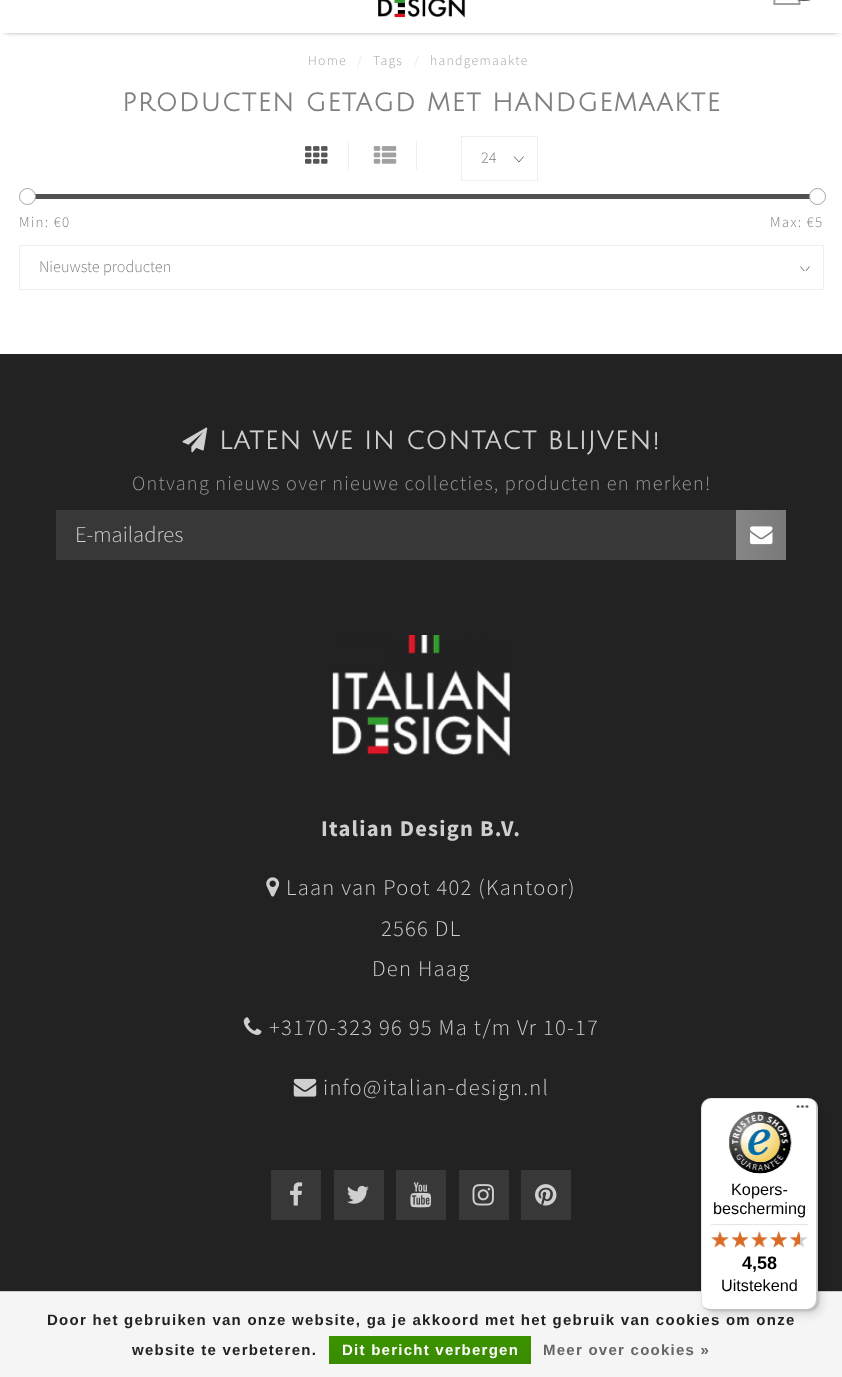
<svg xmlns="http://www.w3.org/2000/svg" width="842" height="1377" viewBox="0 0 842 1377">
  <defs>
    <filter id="blur1" x="-50%" y="-200%" width="200%" height="500%"><feGaussianBlur stdDeviation="3"/></filter>
    <clipPath id="clip1"><rect x="800" y="266" width="10" height="5"/></clipPath>
    <linearGradient id="g1" gradientUnits="userSpaceOnUse" x1="736" y1="535" x2="786" y2="535"><stop offset="0" stop-color="#868686"/><stop offset="1" stop-color="#797979"/></linearGradient>
    <linearGradient id="g2" gradientUnits="userSpaceOnUse" x1="430" y1="1336" x2="430" y2="1364"><stop offset="0" stop-color="#3c9300"/><stop offset="1" stop-color="#398a00"/></linearGradient>
    <filter id="blur2" x="-50%" y="-200%" width="200%" height="500%"><feGaussianBlur stdDeviation="5"/></filter>
    <filter id="blur3" x="-50%" y="-200%" width="200%" height="500%"><feGaussianBlur stdDeviation="1"/></filter>
  </defs>
  <rect width="100%" height="100%" fill="#ffffff"/>
  <rect x="5" y="-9" width="833" height="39" fill="#000000" filter="url(#blur1)"/>
  <rect x="0" y="0" width="842" height="33" fill="#ffffff"/>
  <image x="773" y="0" width="28" height="5" href="img1.png"/>
  <rect x="790" y="-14" width="28" height="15" rx="13.5" fill="#565656"/>
  <image x="378" y="0" width="88" height="19" href="img2.png"/>
  <text x="308" y="65" font-family="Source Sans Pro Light" font-size="13.75" font-weight="300" letter-spacing="1.25" fill="#a5a5a5">Home</text>
  <text x="357" y="65" font-family="Source Sans Pro Light" font-size="13.75" font-weight="300" letter-spacing="1.25" fill="#dddddd">/</text>
  <text x="373" y="65" font-family="Source Sans Pro Light" font-size="13.75" font-weight="300" letter-spacing="1.25" fill="#a5a5a5">Tags</text>
  <text x="414" y="65" font-family="Source Sans Pro Light" font-size="13.75" font-weight="300" letter-spacing="1.25" fill="#dddddd">/</text>
  <text x="430" y="65" font-family="Source Sans Pro Light" font-size="13.75" font-weight="300" letter-spacing="1.25" fill="#a5a5a5">handgemaakte</text>
  <text x="122" y="111" font-family="Julius Sans One" font-size="25" font-weight="bold" letter-spacing="1.25" fill="#808080">PRODUCTEN GETAGD MET HANDGEMAAKTE</text>
  <rect x="348" y="141" width="1" height="29" fill="#eeeeee"/>
  <image x="305" y="146" width="23" height="18" href="img3.png"/>
  <rect x="416" y="141" width="1" height="29" fill="#eeeeee"/>
  <image x="373" y="146" width="24" height="18" href="img4.png"/>
  <path d="M523.5 156.5L519 162L514 156.5" fill="none" stroke="#595959" stroke-width="0.9"/>
  <rect x="461.5" y="136.5" width="76" height="44" fill="none" stroke="#eeeeee"/>
  <text x="481" y="163" font-family="Source Sans Pro Light" font-size="16.25" font-weight="300" fill="#808080">24</text>
  <rect x="31" y="194" width="779" height="5" fill="#515151"/>
  <circle cx="27.5" cy="196.5" r="8" fill="#ffffff" stroke="#a5a5a5"/>
  <circle cx="817.5" cy="196.5" r="8" fill="#ffffff" stroke="#a5a5a5"/>
  <text x="19" y="227" font-family="Source Sans Pro Light" font-size="15" font-weight="300" letter-spacing="1.25" fill="#808080">Min: €0</text>
  <text x="770" y="227" font-family="Source Sans Pro Light" font-size="15" font-weight="300" letter-spacing="1.25" fill="#808080">Max: €5</text>
  <g clip-path="url(#clip1)">
    <path d="M809.5 266.5L805 272L800.5 266.5" fill="none" stroke="#595959" stroke-width="0.9"/>
  </g>
  <rect x="19.5" y="245.5" width="804" height="44" fill="none" stroke="#eeeeee"/>
  <text x="39" y="272" font-family="Source Sans Pro Light" font-size="16.25" font-weight="300" fill="#808080">Nieuwste producten</text>
  <rect x="0" y="354" width="842" height="937" fill="#222222"/>
  <image x="182" y="427" width="26" height="26" href="img5.png"/>
  <text x="219" y="449" font-family="Julius Sans One" font-size="24.75" font-weight="bold" letter-spacing="1.25" fill="#cfcfcf">LATEN WE IN CONTACT BLIJVEN!</text>
  <text x="132" y="490" font-family="Source Sans Pro Light" font-size="20.25" font-weight="300" letter-spacing="1.25" fill="#9b9b9b">Ontvang nieuws over nieuwe collecties, producten en merken!</text>
  <rect x="56" y="510" width="680" height="50" fill="#383838"/>
  <text x="75" y="542" font-family="Source Sans Pro Light" font-size="22.5" font-weight="300" fill="#cfcfcf">E-mailadres</text>
  <rect x="736" y="510" width="50" height="50" fill="url(#g1)"/>
  <image x="750" y="526" width="23" height="19" href="img6.png"/>
  <image x="332" y="635" width="178" height="122" href="img7.png"/>
  <text x="321" y="836" font-family="Source Sans Pro" font-size="22.5" font-weight="bold" letter-spacing="1.25" fill="#cfcfcf">Italian Design B.V.</text>
  <image x="266" y="877" width="14" height="20" href="img8.png"/>
  <text x="286" y="895" font-family="Source Sans Pro Light" font-size="22.5" font-weight="300" letter-spacing="1.25" fill="#cfcfcf">Laan van Poot 402 (Kantoor)</text>
  <text x="381" y="936" font-family="Source Sans Pro Light" font-size="22.5" font-weight="300" letter-spacing="1.25" fill="#cfcfcf">2566 DL</text>
  <text x="372" y="976" font-family="Source Sans Pro Light" font-size="22.5" font-weight="300" letter-spacing="1.25" fill="#cfcfcf">Den Haag</text>
  <image x="243" y="1017" width="19" height="18" href="img9.png"/>
  <text x="269" y="1035" font-family="Source Sans Pro Light" font-size="22.5" font-weight="300" letter-spacing="1.25" fill="#cfcfcf">+3170-323 96 95 Ma t/m Vr 10-17</text>
  <image x="293" y="1078" width="24" height="19" href="img10.png"/>
  <text x="323" y="1095" font-family="Source Sans Pro Light" font-size="22.5" font-weight="300" letter-spacing="1.25" fill="#cfcfcf">info@italian-design.nl</text>
  <rect x="271" y="1170" width="50" height="50" fill="#383838"/>
  <image x="290" y="1182" width="13" height="24" href="img11.png"/>
  <rect x="334" y="1170" width="50" height="50" fill="#383838"/>
  <image x="347" y="1185" width="22" height="19" href="img12.png"/>
  <rect x="396" y="1170" width="50" height="50" fill="#383838"/>
  <image x="410" y="1182" width="22" height="26" href="img13.png"/>
  <rect x="459" y="1170" width="50" height="50" fill="#383838"/>
  <image x="472" y="1184" width="22" height="22" href="img14.png"/>
  <rect x="521" y="1170" width="50" height="50" fill="#383838"/>
  <image x="535" y="1184" width="22" height="22" href="img15.png"/>
  <rect x="0" y="1292" width="842" height="85" fill="#f5f5f5"/>
  <rect x="0" y="1291" width="842" height="1" fill="#cccccc"/>
  <text x="47" y="1325" font-family="Liberation Sans" font-size="15" font-weight="bold" letter-spacing="1.25" fill="#222222">Door het gebruiken van onze website, ga je akkoord met het gebruik van cookies om onze</text>
  <text x="132" y="1355" font-family="Liberation Sans" font-size="15" font-weight="bold" letter-spacing="1.25" fill="#222222">website te verbeteren.</text>
  <rect x="329" y="1336" width="202" height="28" fill="url(#g2)"/>
  <text x="342" y="1355" font-family="Liberation Sans" font-size="15" font-weight="bold" letter-spacing="1.25" fill="#ffffff">Dit bericht verbergen</text>
  <text x="543" y="1355" font-family="Liberation Sans" font-size="15" font-weight="bold" letter-spacing="1.25" fill="#666666">Meer over cookies »</text>
  <rect x="705" y="1101" width="116" height="213" rx="10" fill="#000000" fill-opacity="0.15" filter="url(#blur2)"/>
  <rect x="703" y="1099" width="116" height="212" rx="10" fill="#000000" fill-opacity="0.15" filter="url(#blur3)"/>
  <rect x="701" y="1098" width="117" height="212" rx="10" fill="#ffffff"/>
  <path d="M712 1099H809C811 1099 814 1100 816 1102C814 1099 811 1098 808 1098H711C705 1098 701 1102 701 1108V1300C701 1303 702 1306 704 1308C703 1306 702 1304 702 1301V1109C702 1103 707 1099 712 1099Z" fill="#000000" fill-opacity="0.1"/>
  <path d="M703 1307C705 1309 708 1310 711 1310H808C814 1310 818 1306 818 1300V1108C818 1105 816 1102 814 1100C815 1102 816 1104 816 1106V1299C816 1304 812 1309 806 1309H710C707 1309 705 1308 703 1307Z" fill="#000000" fill-opacity="0.2"/>
  <path d="M703 1306C705 1309 708 1310 711 1310H808C814 1310 818 1306 818 1300V1108C818 1105 817 1102 815 1100C816 1102 817 1104 817 1107V1299C817 1305 812 1309 807 1309H710C708 1309 705 1308 703 1306Z" fill="#323232" fill-opacity="0.2"/>
  <path d="M701 1299V1300C701 1306 705 1310 711 1310H808C814 1310 818 1306 818 1300V1108C818 1105 817 1102 815 1100C816 1102 817 1104 817 1107V1299C817 1305 812 1309 807 1309H711C705 1309 701 1305 701 1299Z" fill="#ffffff" fill-opacity="0.3"/>
  <image x="796" y="1105" width="13" height="3" href="img16.png"/>
  <image x="729" y="1111" width="63" height="63" href="img17.png"/>
  <text x="731" y="1195" font-family="Liberation Sans" font-size="16.25" fill="#000000">Kopers-</text>
  <text x="713" y="1214" font-family="Liberation Sans" font-size="16.25" fill="#000000">bescherming</text>
  <rect x="711" y="1224" width="97" height="1" fill="#e5e5e5"/>
  <image x="711" y="1232" width="18" height="15" href="img18.png"/>
  <image x="732" y="1231" width="16" height="17" href="img19.png"/>
  <image x="751" y="1232" width="17" height="15" href="img20.png"/>
  <image x="770" y="1231" width="17" height="17" href="img21.png"/>
  <image x="790" y="1232" width="18" height="15" href="img22.png"/>
  <image x="711" y="1231" width="18" height="17" href="img23.png"/>
  <image x="731" y="1231" width="18" height="17" href="img24.png"/>
  <image x="751" y="1231" width="17" height="17" href="img25.png"/>
  <image x="770" y="1231" width="17" height="17" href="img26.png"/>
  <image x="790" y="1231" width="10" height="17" href="img27.png"/>
  <text x="742" y="1269" font-family="Liberation Sans" font-size="18" font-weight="bold" fill="#000000">4,58</text>
  <text x="721" y="1291" font-family="Liberation Sans" font-size="16.25" fill="#000000">Uitstekend</text>
</svg>
